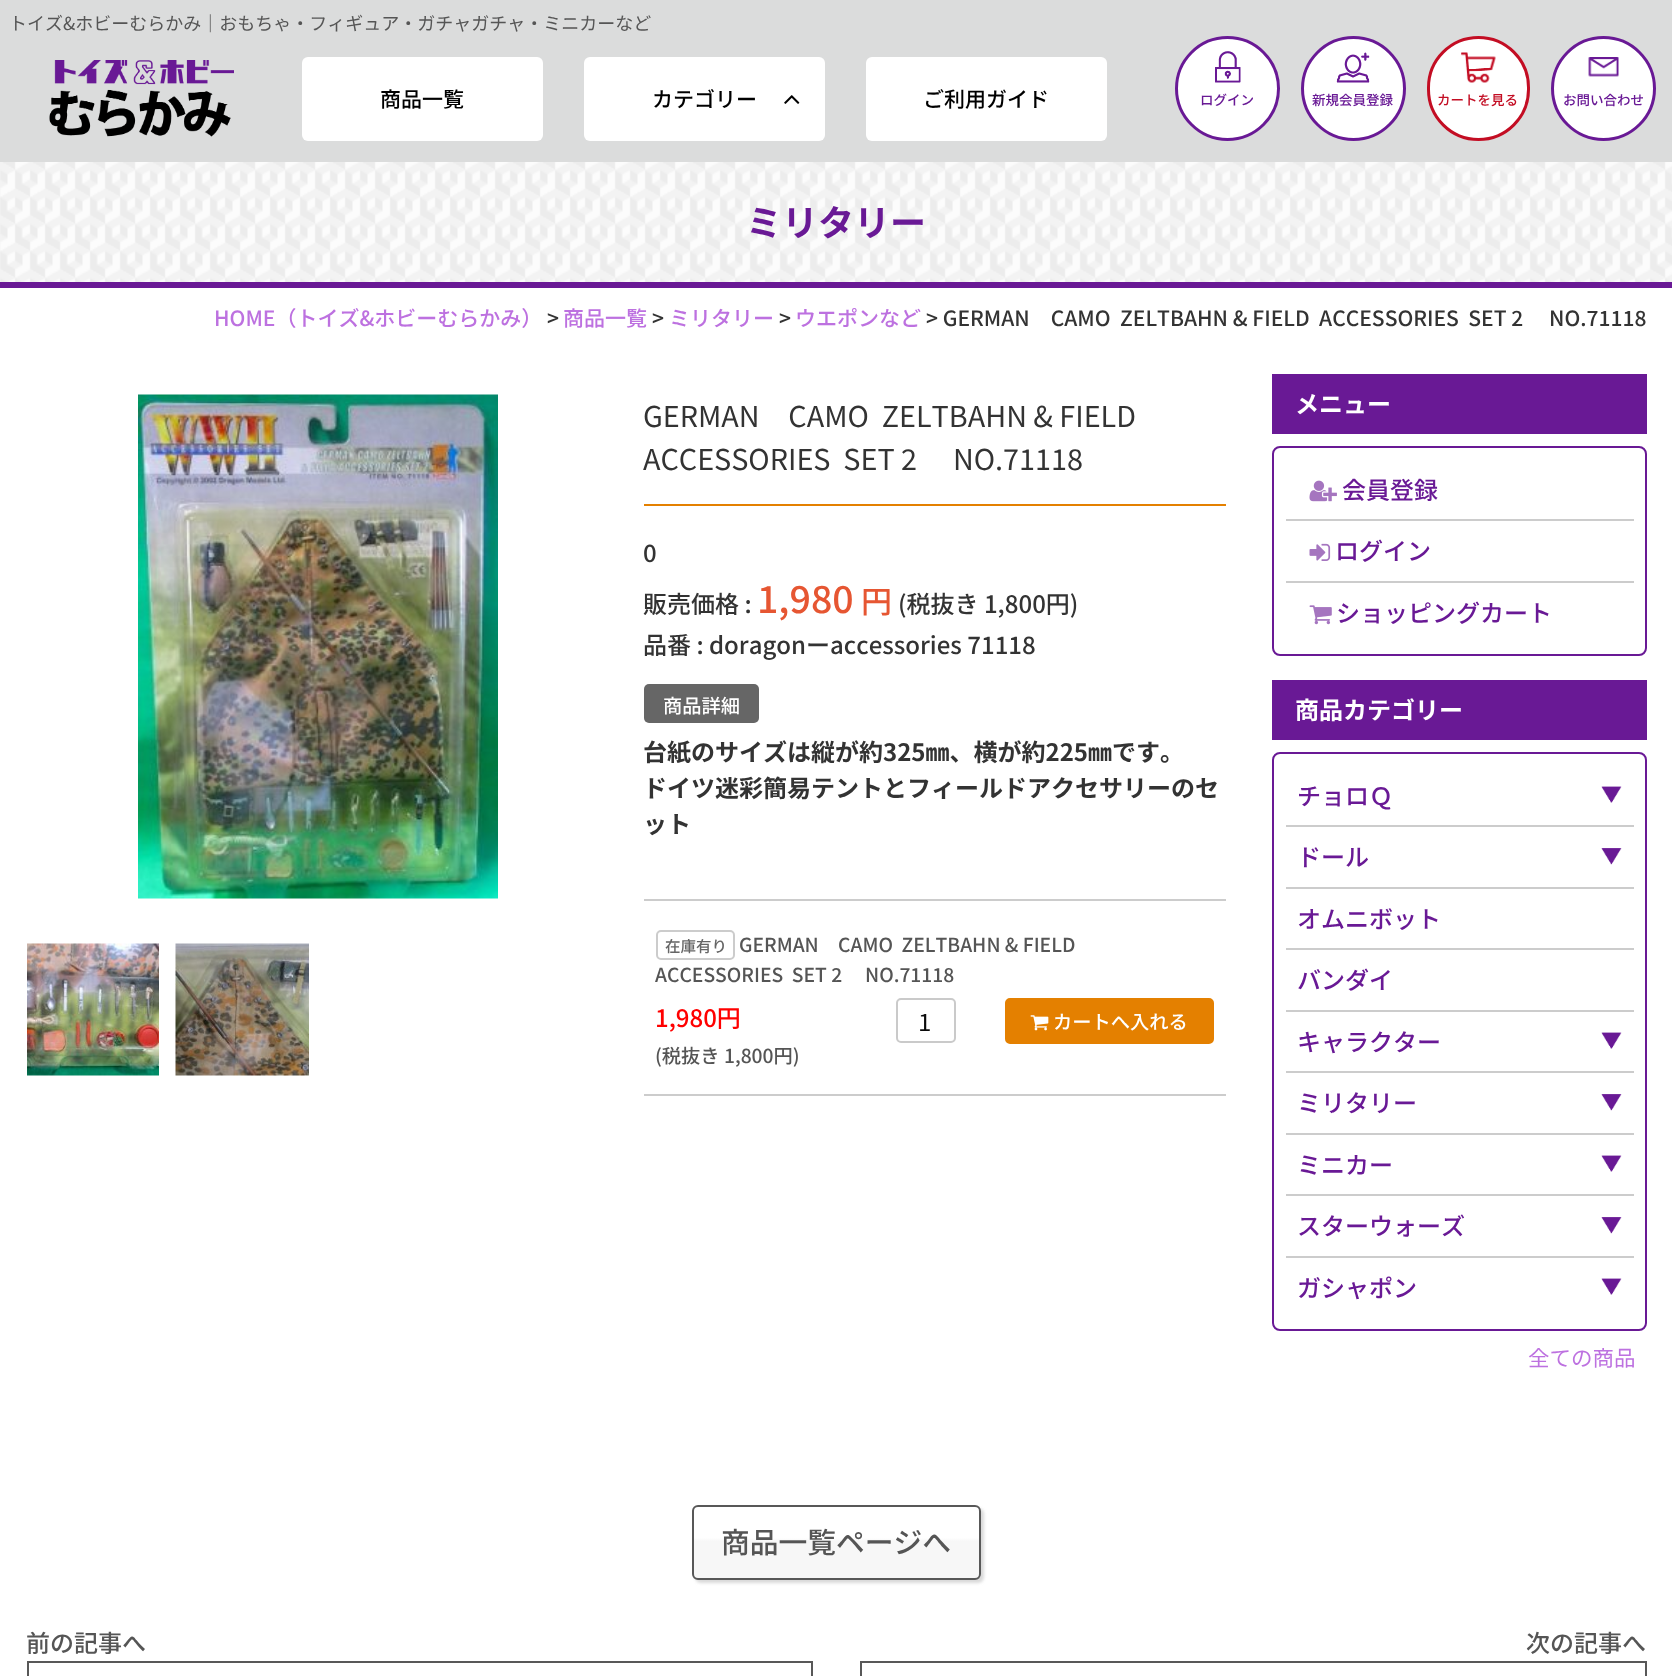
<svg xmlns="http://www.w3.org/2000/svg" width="1672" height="1676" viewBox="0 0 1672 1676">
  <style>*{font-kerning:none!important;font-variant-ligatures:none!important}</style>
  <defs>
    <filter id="blur1" x="-50%" y="-200%" width="200%" height="500%"><feGaussianBlur stdDeviation="1.5"/></filter>
    <clipPath id="clip1"><rect x="692" y="1505" width="289" height="75" rx="6"/></clipPath>
    <linearGradient id="g1" gradientUnits="userSpaceOnUse" x1="836" y1="1578" x2="836" y2="1506"><stop offset="0.51" stop-color="#f7f7f7"/><stop offset="0.56" stop-color="#ffffff"/></linearGradient>
  </defs>
  <rect width="100%" height="100%" fill="#ffffff"/>
  <rect x="0" y="0" width="1672" height="162" fill="#dbdcdc"/>
  <text x="9" y="30" font-family="Noto Sans CJK JP" font-size="18" fill="#555555">トイズ&amp;ホビーむらかみ｜おもちゃ・フィギュア・ガチャガチャ・ミニカーなど</text>
  <image x="49" y="60" width="185" height="77" href="img1.png"/>
  <rect x="302" y="57" width="241" height="84" rx="6" fill="#ffffff"/>
  <text x="380" y="107" font-family="Noto Sans CJK JP" font-size="21" font-weight="500" fill="#000000">商品一覧</text>
  <rect x="584" y="57" width="241" height="84" rx="6" fill="#ffffff"/>
  <text x="652" y="107" font-family="Noto Sans CJK JP" font-size="21" font-weight="500" fill="#000000">カテゴリー</text>
  <image x="784" y="95" width="16" height="9" href="img2.png"/>
  <rect x="866" y="57" width="241" height="84" rx="6" fill="#ffffff"/>
  <text x="923" y="107" font-family="Noto Sans CJK JP" font-size="21" font-weight="500" fill="#000000">ご利用ガイド</text>
  <circle cx="1227.5" cy="88.5" r="51" fill="#ffffff" stroke="#691995" stroke-width="3"/>
  <image x="1215" y="51" width="26" height="32" href="img3.png"/>
  <text x="1200" y="105" font-family="Noto Sans CJK JP" font-size="13.5" font-weight="500" fill="#691995">ログイン</text>
  <circle cx="1353.5" cy="88.5" r="51" fill="#ffffff" stroke="#691995" stroke-width="3"/>
  <image x="1336" y="52" width="34" height="31" href="img4.png"/>
  <text x="1312" y="105" font-family="Noto Sans CJK JP" font-size="13.5" font-weight="500" fill="#691995">新規会員登録</text>
  <rect x="1428.5" y="37.5" width="100" height="102" rx="50" fill="#ffffff" stroke="#c30d23" stroke-width="3"/>
  <image x="1461" y="52" width="35" height="31" href="img5.png"/>
  <text x="1437" y="105" font-family="Noto Sans CJK JP" font-size="13.5" font-weight="500" fill="#c30d23">カートを見る</text>
  <circle cx="1603.5" cy="88.5" r="51" fill="#ffffff" stroke="#691995" stroke-width="3"/>
  <image x="1588" y="57" width="31" height="20" href="img6.png"/>
  <text x="1563" y="105" font-family="Noto Sans CJK JP" font-size="13.5" font-weight="500" fill="#691995">お問い合わせ</text>
  <image x="0" y="162" width="1672" height="120" href="img7.png"/>
  <rect x="0" y="282" width="1672" height="6" fill="#691995"/>
  <text x="746" y="236" font-family="Noto Sans CJK JP" font-size="36" font-weight="bold" fill="#691995">ミリタリー</text>
  <text x="214" y="326" font-family="Noto Sans CJK JP" font-size="21" font-weight="500" fill="#bd71e0">HOME（トイズ&amp;ホビーむらかみ）</text>
  <text x="547" y="326" font-family="Noto Sans CJK JP" font-size="21" font-weight="500" fill="#333333">&gt;</text>
  <text x="563" y="326" font-family="Noto Sans CJK JP" font-size="21" font-weight="500" fill="#bd71e0">商品一覧</text>
  <text x="652" y="326" font-family="Noto Sans CJK JP" font-size="21" font-weight="500" fill="#333333">&gt;</text>
  <text x="669" y="326" font-family="Noto Sans CJK JP" font-size="21" font-weight="500" fill="#bd71e0">ミリタリー</text>
  <text x="779" y="326" font-family="Noto Sans CJK JP" font-size="21" font-weight="500" fill="#333333">&gt;</text>
  <text x="795" y="326" font-family="Noto Sans CJK JP" font-size="21" font-weight="500" fill="#bd71e0">ウエポンなど</text>
  <text x="926" y="326" font-family="Noto Sans CJK JP" font-size="21" font-weight="500" fill="#333333" xml:space="preserve">&gt; GERMAN　CAMO  ZELTBAHN &amp; FIELD  ACCESSORIES  SET 2</text>
  <text x="1549" y="326" font-family="Noto Sans CJK JP" font-size="21" font-weight="500" fill="#333333">NO.71118</text>
  <image x="138" y="394" width="360" height="505" href="img8.png"/>
  <image x="27" y="943" width="132" height="133" href="img9.png"/>
  <image x="175" y="943" width="134" height="133" href="img10.png"/>
  <rect x="644" y="504" width="582" height="2" fill="#e48000"/>
  <text x="643" y="427" font-family="Noto Sans CJK JP" font-size="28.75" fill="#333333" xml:space="preserve">GERMAN　CAMO  ZELTBAHN &amp; FIELD</text>
  <text x="643" y="470" font-family="Noto Sans CJK JP" font-size="28.75" fill="#333333" xml:space="preserve">ACCESSORIES  SET 2</text>
  <text x="953" y="470" font-family="Noto Sans CJK JP" font-size="28.75" fill="#333333">NO.71118</text>
  <text x="643" y="562" font-family="Noto Sans CJK JP" font-size="24" font-weight="500" fill="#333333">0</text>
  <text x="643" y="613" font-family="Noto Sans CJK JP" font-size="24" font-weight="500" fill="#333333">販売価格 :</text>
  <text x="757" y="613" font-family="Noto Sans CJK JP" font-size="37.5" font-weight="500" fill="#e65632">1,980</text>
  <text x="861" y="613" font-family="Noto Sans CJK JP" font-size="31" font-weight="500" fill="#e65632">円</text>
  <text x="898" y="613" font-family="Noto Sans CJK JP" font-size="24" font-weight="500" fill="#333333">(税抜き 1,800円)</text>
  <text x="643" y="654" font-family="Noto Sans CJK JP" font-size="24" font-weight="500" fill="#333333">品番 : doragonーaccessories 71118</text>
  <rect x="644" y="684" width="115" height="39" rx="5" fill="#666666"/>
  <text x="663" y="713" font-family="Noto Sans CJK JP" font-size="19.25" font-weight="500" fill="#ffffff">商品詳細</text>
  <text x="643" y="761" font-family="Noto Sans CJK JP" font-size="24" font-weight="bold" fill="#333333">台紙のサイズは縦が約325㎜、横が約225㎜です。</text>
  <text x="643" y="797" font-family="Noto Sans CJK JP" font-size="24" font-weight="bold" fill="#333333">ドイツ迷彩簡易テントとフィールドアクセサリーのセ</text>
  <text x="643" y="833" font-family="Noto Sans CJK JP" font-size="24" font-weight="bold" fill="#333333">ット</text>
  <rect x="644" y="899" width="582" height="2" fill="#cccccc"/>
  <rect x="644" y="1094" width="582" height="2" fill="#cccccc"/>
  <rect x="657" y="931" width="77" height="28" rx="4" fill="none" stroke="#cccccc" stroke-width="2"/>
  <text x="665" y="952" font-family="Noto Sans CJK JP" font-size="15.5" font-weight="500" fill="#666666">在庫有り</text>
  <text x="739" y="952" font-family="Noto Sans CJK JP" font-size="19.25" font-weight="500" fill="#555555" xml:space="preserve">GERMAN　CAMO  ZELTBAHN &amp; FIELD</text>
  <text x="655" y="982" font-family="Noto Sans CJK JP" font-size="19.25" font-weight="500" fill="#555555" xml:space="preserve">ACCESSORIES  SET 2</text>
  <text x="865" y="982" font-family="Noto Sans CJK JP" font-size="19.25" font-weight="500" fill="#555555">NO.71118</text>
  <text x="655" y="1027" font-family="Noto Sans CJK JP" font-size="24" font-weight="500" fill="#ff0000">1,980円</text>
  <text x="655" y="1063" font-family="Noto Sans CJK JP" font-size="19.25" font-weight="500" fill="#555555">(税抜き 1,800円)</text>
  <rect x="897" y="999" width="58" height="43" rx="4" fill="none" stroke="#cacaca" stroke-width="2"/>
  <text x="918" y="1031" font-family="Noto Sans CJK JP" font-size="24" fill="#0a0a0a">1</text>
  <rect x="1006" y="999" width="207" height="44" rx="4" fill="#e48000" stroke="#e48000" stroke-width="2"/>
  <image x="1030" y="1015" width="19" height="16" href="img11.png"/>
  <text x="1053" y="1029" font-family="Noto Sans CJK JP" font-size="19.25" font-weight="500" fill="#ffffff">カートへ入れる</text>
  <rect x="1272" y="374" width="375" height="60" fill="#691995"/>
  <text x="1295" y="413" font-family="Noto Sans CJK JP" font-size="24" font-weight="bold" fill="#ffffff">メニュー</text>
  <rect x="1273" y="447" width="373" height="208" rx="7" fill="none" stroke="#691995" stroke-width="2"/>
  <rect x="1286" y="519" width="348" height="2" fill="#cccccc"/>
  <image x="1309" y="480" width="28" height="22" href="img12.png"/>
  <text x="1342" y="499" font-family="Noto Sans CJK JP" font-size="24" font-weight="500" fill="#691995">会員登録</text>
  <rect x="1286" y="581" width="348" height="2" fill="#cccccc"/>
  <image x="1309" y="543" width="22" height="18" href="img13.png"/>
  <text x="1335" y="560" font-family="Noto Sans CJK JP" font-size="24" font-weight="500" fill="#691995">ログイン</text>
  <image x="1309" y="605" width="23" height="20" href="img14.png"/>
  <text x="1336" y="622" font-family="Noto Sans CJK JP" font-size="24" font-weight="500" fill="#691995">ショッピングカート</text>
  <rect x="1272" y="680" width="375" height="60" fill="#691995"/>
  <text x="1295" y="719" font-family="Noto Sans CJK JP" font-size="24" font-weight="bold" fill="#ffffff">商品カテゴリー</text>
  <rect x="1273" y="753" width="373" height="577" rx="7" fill="none" stroke="#691995" stroke-width="2"/>
  <text x="1297" y="805" font-family="Noto Sans CJK JP" font-size="24" font-weight="500" fill="#691995">チョロＱ</text>
  <image x="1601" y="786" width="21" height="17" href="img15.png"/>
  <rect x="1286" y="825" width="348" height="2" fill="#cccccc"/>
  <text x="1297" y="866" font-family="Noto Sans CJK JP" font-size="24" font-weight="500" fill="#691995">ドール</text>
  <image x="1601" y="848" width="21" height="17" href="img16.png"/>
  <rect x="1286" y="887" width="348" height="2" fill="#cccccc"/>
  <text x="1297" y="928" font-family="Noto Sans CJK JP" font-size="24" font-weight="500" fill="#691995">オムニボット</text>
  <rect x="1286" y="948" width="348" height="2" fill="#cccccc"/>
  <text x="1297" y="989" font-family="Noto Sans CJK JP" font-size="24" font-weight="500" fill="#691995">バンダイ</text>
  <rect x="1286" y="1010" width="348" height="2" fill="#cccccc"/>
  <text x="1297" y="1051" font-family="Noto Sans CJK JP" font-size="24" font-weight="500" fill="#691995">キャラクター</text>
  <image x="1601" y="1032" width="21" height="17" href="img15.png"/>
  <rect x="1286" y="1071" width="348" height="2" fill="#cccccc"/>
  <text x="1297" y="1112" font-family="Noto Sans CJK JP" font-size="24" font-weight="500" fill="#691995">ミリタリー</text>
  <image x="1601" y="1094" width="21" height="17" href="img16.png"/>
  <rect x="1286" y="1133" width="348" height="2" fill="#cccccc"/>
  <text x="1297" y="1174" font-family="Noto Sans CJK JP" font-size="24" font-weight="500" fill="#691995">ミニカー</text>
  <image x="1601" y="1155" width="21" height="17" href="img15.png"/>
  <rect x="1286" y="1194" width="348" height="2" fill="#cccccc"/>
  <text x="1297" y="1235" font-family="Noto Sans CJK JP" font-size="24" font-weight="500" fill="#691995">スターウォーズ</text>
  <image x="1601" y="1217" width="21" height="17" href="img16.png"/>
  <rect x="1286" y="1256" width="348" height="2" fill="#cccccc"/>
  <text x="1297" y="1297" font-family="Noto Sans CJK JP" font-size="24" font-weight="500" fill="#691995">ガシャポン</text>
  <image x="1601" y="1278" width="21" height="17" href="img15.png"/>
  <text x="1528" y="1366" font-family="Noto Sans CJK JP" font-size="21.5" fill="#bd71e0">全ての商品</text>
  <rect x="695" y="1508" width="289" height="75" rx="6" fill="#cecece" fill-opacity="0.75" filter="url(#blur1)"/>
  <g clip-path="url(#clip1)">
    <rect x="692" y="1506" width="289" height="72" fill="url(#g1)"/>
  </g>
  <rect x="693" y="1506" width="287" height="73" rx="5" fill="none" stroke="#585858" stroke-width="2"/>
  <text x="721" y="1553" font-family="Noto Sans CJK JP" font-size="28.75" font-weight="500" fill="#555555">商品一覧ページへ</text>
  <text x="26" y="1652" font-family="Noto Sans CJK JP" font-size="24" font-weight="500" fill="#555555">前の記事へ</text>
  <rect x="28" y="1662" width="784" height="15" fill="none" stroke="#585858" stroke-width="2"/>
  <text x="1526" y="1652" font-family="Noto Sans CJK JP" font-size="24" font-weight="500" fill="#555555">次の記事へ</text>
  <rect x="861" y="1662" width="785" height="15" fill="none" stroke="#585858" stroke-width="2"/>
</svg>
